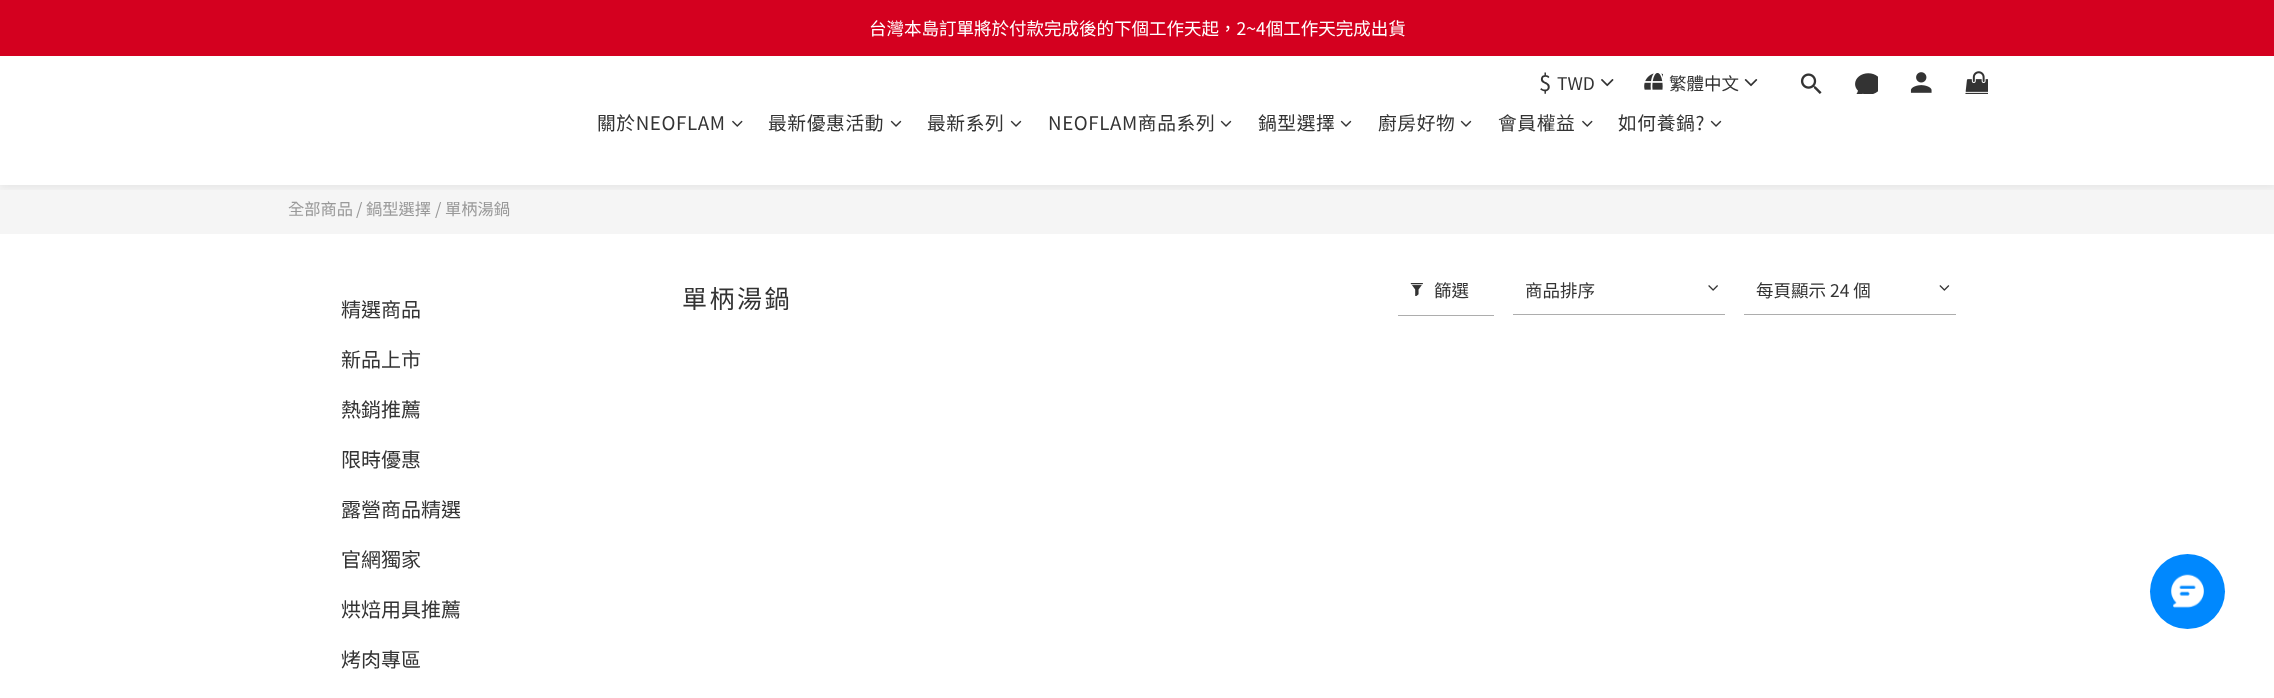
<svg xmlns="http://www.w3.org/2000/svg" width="2274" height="698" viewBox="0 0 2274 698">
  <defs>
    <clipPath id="clip1"><rect x="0" y="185" width="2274" height="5"/></clipPath>
    <filter id="blur1" x="-50%" y="-200%" width="200%" height="500%"><feGaussianBlur stdDeviation="4"/></filter>
  </defs>
  <rect width="100%" height="100%" fill="#ffffff"/>
  <rect x="0" y="0" width="2274" height="56" fill="#d4001f"/>
  <text x="869" y="35" font-family="Noto Sans TC" font-size="17.5" fill="#ffffff">台灣本島訂單將於付款完成後的下個工作天起，2~4個工作天完成出貨</text>
  <rect x="0" y="185" width="2274" height="49" fill="#f5f5f5"/>
  <g clip-path="url(#clip1)">
    <rect x="0" y="59" width="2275" height="129" fill="#000000" fill-opacity="0.06" filter="url(#blur1)"/>
  </g>
  <text x="1539" y="91" font-family="Noto Sans TC" font-size="22" letter-spacing="1" fill="#333333">$</text>
  <text x="1557" y="90" font-family="Noto Sans TC" font-size="17.5" fill="#333333">TWD</text>
  <image x="1601" y="79" width="13" height="8" href="img1.png"/>
  <image x="1644" y="73" width="19" height="17" href="img2.png"/>
  <text x="1669" y="90" font-family="Noto Sans TC" font-size="17.5" fill="#333333">繁體中文</text>
  <image x="1744" y="79" width="14" height="8" href="img3.png"/>
  <image x="1800" y="73" width="22" height="21" href="img4.png"/>
  <image x="1855" y="73" width="23" height="21" href="img5.png"/>
  <image x="1910" y="72" width="22" height="21" href="img6.png"/>
  <image x="1965" y="71" width="23" height="23" href="img7.png"/>
  <text x="597" y="130" font-family="Noto Sans TC" font-size="18.75" letter-spacing="0.6" fill="#333333">關於NEOFLAM</text>
  <image x="732" y="120" width="11" height="7" href="img8.png"/>
  <text x="768" y="130" font-family="Noto Sans TC" font-size="18.75" letter-spacing="0.6" fill="#333333">最新優惠活動</text>
  <image x="890" y="120" width="12" height="7" href="img9.png"/>
  <text x="927" y="130" font-family="Noto Sans TC" font-size="18.75" letter-spacing="0.6" fill="#333333">最新系列</text>
  <image x="1010" y="120" width="12" height="7" href="img9.png"/>
  <text x="1048" y="130" font-family="Noto Sans TC" font-size="18.75" letter-spacing="0.6" fill="#333333">NEOFLAM商品系列</text>
  <image x="1220" y="120" width="12" height="7" href="img9.png"/>
  <text x="1258" y="130" font-family="Noto Sans TC" font-size="18.75" letter-spacing="0.6" fill="#333333">鍋型選擇</text>
  <image x="1340" y="120" width="12" height="7" href="img9.png"/>
  <text x="1378" y="130" font-family="Noto Sans TC" font-size="18.75" letter-spacing="0.6" fill="#333333">廚房好物</text>
  <image x="1460" y="120" width="12" height="7" href="img9.png"/>
  <text x="1498" y="130" font-family="Noto Sans TC" font-size="18.75" letter-spacing="0.6" fill="#333333">會員權益</text>
  <image x="1582" y="120" width="11" height="7" href="img8.png"/>
  <text x="1618" y="130" font-family="Noto Sans TC" font-size="18.75" letter-spacing="0.6" fill="#333333">如何養鍋?</text>
  <image x="1710" y="120" width="12" height="7" href="img9.png"/>
  <text x="288" y="215" font-family="Noto Sans TC" font-size="16.25" fill="#999999">全部商品</text>
  <text x="356" y="215" font-family="Noto Sans TC" font-size="16.25" fill="#999999">/ 鍋型選擇</text>
  <text x="435" y="215" font-family="Noto Sans TC" font-size="16.25" fill="#999999">/ 單柄湯鍋</text>
  <text x="682" y="308" font-family="Noto Sans TC" font-size="25" letter-spacing="2.5" fill="#333333">單柄湯鍋</text>
  <rect x="1398" y="315" width="96" height="1" fill="#adadad"/>
  <image x="1410" y="283" width="13" height="13" href="img10.png"/>
  <text x="1434" y="297" font-family="Noto Sans TC" font-size="17.5" fill="#333333">篩選</text>
  <text x="1525" y="297" font-family="Noto Sans TC" font-size="17.5" fill="#333333">商品排序</text>
  <rect x="1513" y="314" width="212" height="1" fill="#adadad"/>
  <image x="1708" y="285" width="10" height="6" href="img11.png"/>
  <text x="1756" y="297" font-family="Noto Sans TC" font-size="17.5" fill="#333333">每頁顯示 24 個</text>
  <rect x="1744" y="314" width="212" height="1" fill="#adadad"/>
  <image x="1939" y="285" width="11" height="6" href="img12.png"/>
  <text x="341" y="317" font-family="Noto Sans TC" font-size="20" fill="#333333">精選商品</text>
  <text x="341" y="367" font-family="Noto Sans TC" font-size="20" fill="#333333">新品上市</text>
  <text x="341" y="417" font-family="Noto Sans TC" font-size="20" fill="#333333">熱銷推薦</text>
  <text x="341" y="467" font-family="Noto Sans TC" font-size="20" fill="#333333">限時優惠</text>
  <text x="341" y="517" font-family="Noto Sans TC" font-size="20" fill="#333333">露營商品精選</text>
  <text x="341" y="567" font-family="Noto Sans TC" font-size="20" fill="#333333">官網獨家</text>
  <text x="341" y="617" font-family="Noto Sans TC" font-size="20" fill="#333333">烘焙用具推薦</text>
  <text x="341" y="667" font-family="Noto Sans TC" font-size="20" fill="#333333">烤肉專區</text>
  <circle cx="2187.5" cy="591.5" r="37.5" fill="#0088fe"/>
  <image x="2171" y="574" width="33" height="34" href="img13.png"/>
</svg>
